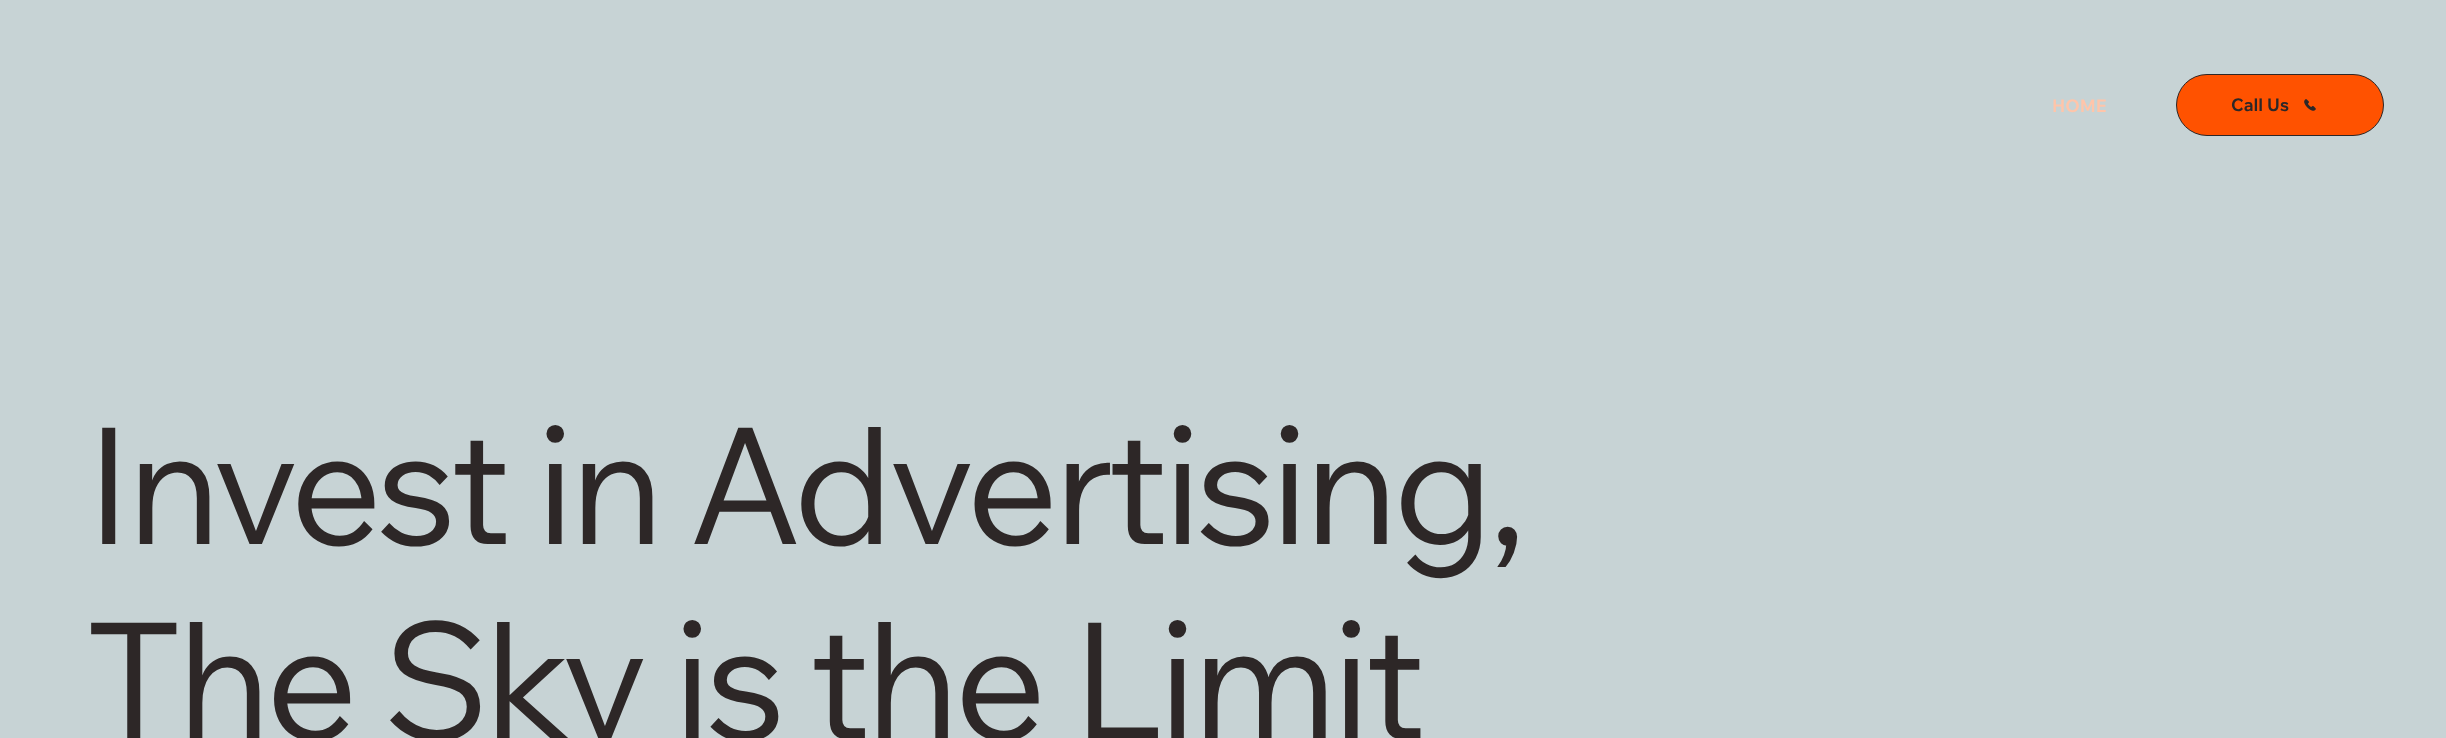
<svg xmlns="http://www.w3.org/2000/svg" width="2446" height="738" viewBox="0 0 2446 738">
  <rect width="100%" height="100%" fill="#c7d3d5"/>
  <text x="2052" y="112" font-family="Wix Madefor Text" font-size="17.5" font-weight="bold" fill="#ffc5aa">HOME</text>
  <rect x="2176.5" y="74.5" width="207" height="61" rx="30.5" fill="#ff5200" stroke="#2d2727"/>
  <text x="2231" y="111" font-family="Wix Madefor Text" font-size="17.5" font-weight="bold" fill="#2d2727">Call Us</text>
  <image x="2304" y="99" width="12" height="12" href="img1.png"/>
  <text x="85" y="544" font-family="Wix Madefor Text" font-size="162.5" letter-spacing="-6.5" fill="#2d2727">Invest in Advertising,</text>
  <text x="85" y="739" font-family="Wix Madefor Text" font-size="162.5" letter-spacing="-6.5" fill="#2d2727">The Sky is the Limit</text>
</svg>
